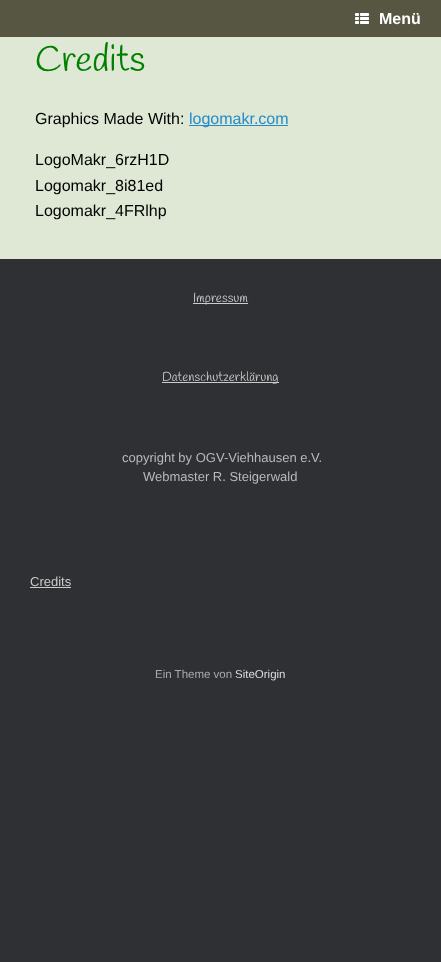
<svg xmlns="http://www.w3.org/2000/svg" width="441" height="962" viewBox="0 0 441 962">
  <rect width="100%" height="100%" fill="#2f3033"/>
  <rect x="0" y="0" width="441" height="37" fill="#565642"/>
  <image x="355" y="13" width="14" height="11" href="img1.png"/>
  <text x="379" y="24" font-family="Liberation Sans" font-size="16" font-weight="bold" fill="#ffffff">Menü</text>
  <rect x="0" y="37" width="441" height="222" fill="#dee8d5"/>
  <text x="35" y="71" font-family="Handlee" font-size="36" fill="#008000">Credits</text>
  <text x="35" y="124" font-family="Liberation Sans" font-size="16" fill="#000000">Graphics Made With:</text>
  <rect x="189" y="125" width="99" height="1" fill="#248cc8"/>
  <text x="189" y="124" font-family="Liberation Sans" font-size="16" fill="#248cc8">logomakr.com</text>
  <text x="35" y="165" font-family="Liberation Sans" font-size="16" fill="#000000">LogoMakr_6rzH1D</text>
  <text x="35" y="191" font-family="Liberation Sans" font-size="16" fill="#000000">Logomakr_8i81ed</text>
  <text x="35" y="216" font-family="Liberation Sans" font-size="16" fill="#000000">Logomakr_4FRlhp</text>
  <rect x="193" y="303" width="55" height="1" fill="#cccccc"/>
  <text x="193" y="302" font-family="Handlee" font-size="13" fill="#cccccc">Impressum</text>
  <rect x="162" y="382" width="117" height="1" fill="#cccccc"/>
  <text x="162" y="381" font-family="Handlee" font-size="13" fill="#cccccc">Datenschutzerklärung</text>
  <text x="122" y="462" font-family="Liberation Sans" font-size="13" fill="#b9b9b9">copyright by OGV-Viehhausen e.V.</text>
  <text x="143" y="481" font-family="Liberation Sans" font-size="13" fill="#b9b9b9">Webmaster R. Steigerwald</text>
  <text x="30" y="586" font-family="Liberation Sans" font-size="13" fill="#cccccc">Credits</text>
  <rect x="30" y="587" width="41" height="1" fill="#cccccc"/>
  <text x="155" y="678" font-family="Liberation Sans" font-size="11.5" fill="#aaaaaa">Ein Theme von</text>
  <text x="235" y="678" font-family="Liberation Sans" font-size="11.5" fill="#dddddd">SiteOrigin</text>
</svg>
